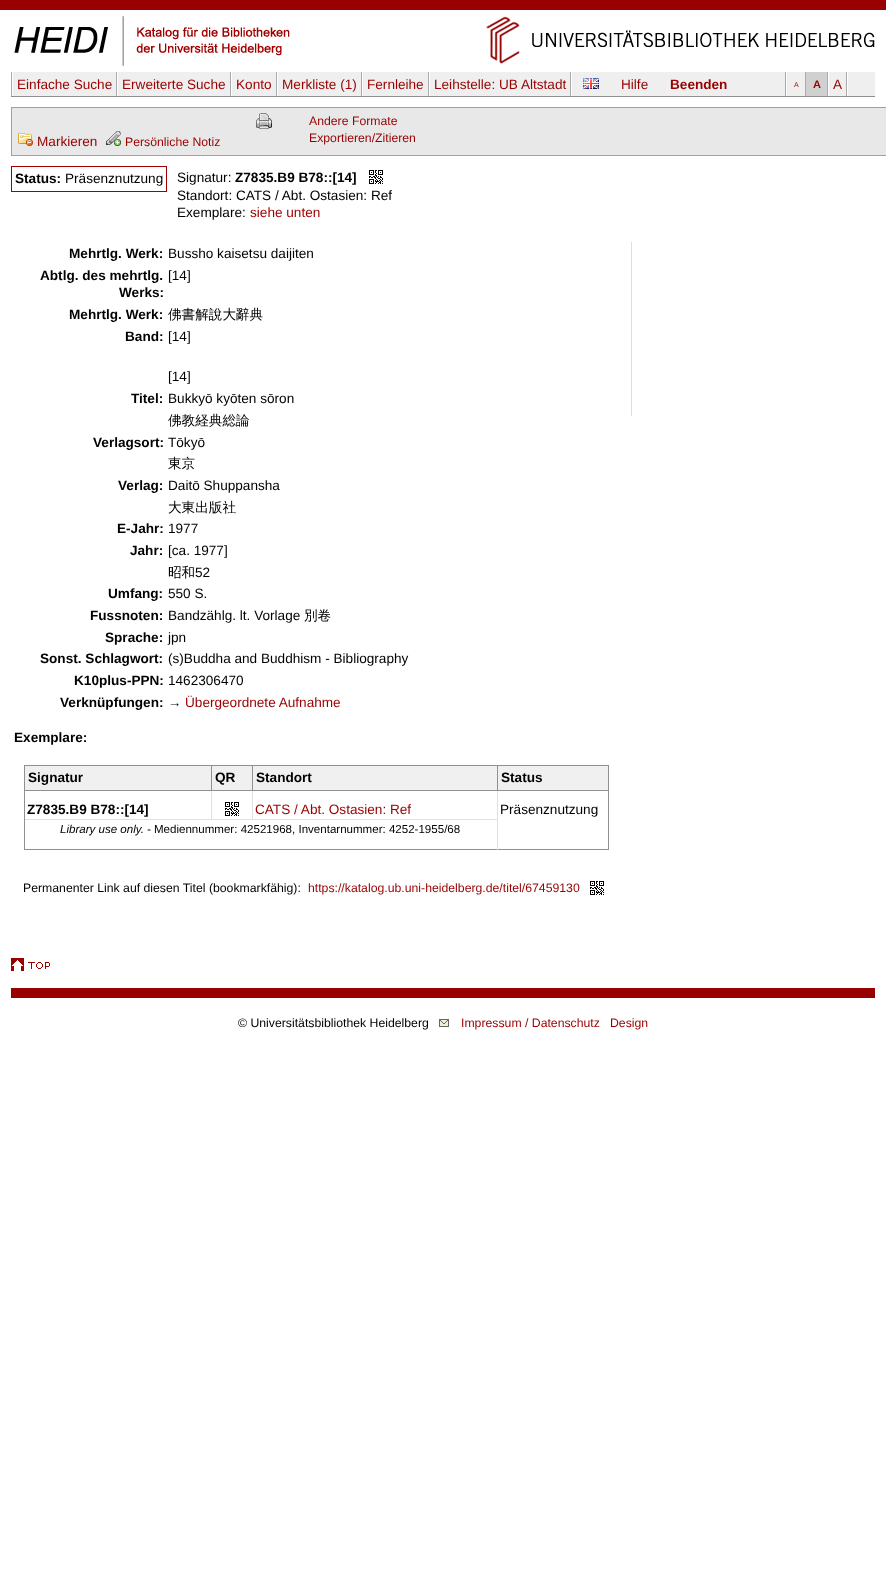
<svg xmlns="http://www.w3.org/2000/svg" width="886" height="1569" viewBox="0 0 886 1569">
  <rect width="100%" height="100%" fill="#ffffff"/>
  <rect x="0" y="0" width="886" height="10" fill="#990000"/>
  <image x="14" y="16" width="276" height="50" href="img1.png"/>
  <image x="486" y="16" width="389" height="48" href="img2.png"/>
  <rect x="13" y="72" width="862" height="24" fill="#efefef"/>
  <rect x="11" y="96" width="864" height="1" fill="#909090"/>
  <rect x="571" y="72" width="1" height="24" fill="#ffffff"/>
  <rect x="11" y="72" width="1" height="24" fill="#aaaaaa"/>
  <rect x="116" y="72" width="1" height="24" fill="#aaaaaa"/>
  <text x="17" y="89" font-family="Liberation Sans" font-size="13.6" fill="#990000">Einfache Suche</text>
  <rect x="230" y="72" width="1" height="24" fill="#aaaaaa"/>
  <rect x="117" y="72" width="1" height="24" fill="#ffffff"/>
  <text x="122" y="89" font-family="Liberation Sans" font-size="13.6" fill="#990000">Erweiterte Suche</text>
  <rect x="276" y="72" width="1" height="24" fill="#aaaaaa"/>
  <rect x="231" y="72" width="1" height="24" fill="#ffffff"/>
  <text x="236" y="89" font-family="Liberation Sans" font-size="13.6" fill="#990000">Konto</text>
  <rect x="361" y="72" width="1" height="24" fill="#aaaaaa"/>
  <rect x="277" y="72" width="1" height="24" fill="#ffffff"/>
  <text x="282" y="89" font-family="Liberation Sans" font-size="13.6" fill="#990000">Merkliste (1)</text>
  <rect x="428" y="72" width="1" height="24" fill="#aaaaaa"/>
  <rect x="362" y="72" width="1" height="24" fill="#ffffff"/>
  <text x="367" y="89" font-family="Liberation Sans" font-size="13.6" fill="#990000">Fernleihe</text>
  <rect x="570" y="72" width="1" height="24" fill="#aaaaaa"/>
  <rect x="429" y="72" width="1" height="24" fill="#ffffff"/>
  <text x="434" y="89" font-family="Liberation Sans" font-size="13.6" fill="#990000">Leihstelle: UB Altstadt</text>
  <image x="583" y="78" width="16" height="11" href="img3.png"/>
  <text x="621" y="89" font-family="Liberation Sans" font-size="13.6" fill="#990000">Hilfe</text>
  <text x="670" y="89" font-family="Liberation Sans" font-size="13.6" font-weight="bold" fill="#990000">Beenden</text>
  <rect x="847" y="72" width="1" height="24" fill="#ffffff"/>
  <rect x="785" y="72" width="1" height="24" fill="#aaaaaa"/>
  <rect x="805" y="72" width="1" height="24" fill="#aaaaaa"/>
  <rect x="786" y="72" width="1" height="24" fill="#ffffff"/>
  <text x="794" y="87" font-family="Liberation Sans" font-size="7" fill="#990000">A</text>
  <rect x="806" y="72" width="21" height="24" fill="#d0d0d0"/>
  <rect x="827" y="72" width="1" height="24" fill="#aaaaaa"/>
  <text x="813" y="88" font-family="Liberation Sans" font-size="11" font-weight="bold" fill="#990000">A</text>
  <rect x="846" y="72" width="1" height="24" fill="#aaaaaa"/>
  <rect x="828" y="72" width="1" height="24" fill="#ffffff"/>
  <text x="833" y="89" font-family="Liberation Sans" font-size="13.6" fill="#990000">A</text>
  <rect x="11.5" y="107.5" width="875" height="48" fill="#e8e8e8" stroke="#a0a0a0"/>
  <image x="18" y="133" width="15" height="13" href="img4.png"/>
  <text x="37" y="146" font-family="Liberation Sans" font-size="13.6" fill="#990000">Markieren</text>
  <image x="106" y="131" width="15" height="15" href="img5.png"/>
  <text x="125" y="146" font-family="Liberation Sans" font-size="12.25" fill="#990000">Persönliche Notiz</text>
  <image x="256" y="113" width="16" height="16" href="img6.png"/>
  <text x="309" y="125" font-family="Liberation Sans" font-size="12.25" fill="#990000">Andere Formate</text>
  <text x="309" y="142" font-family="Liberation Sans" font-size="12.25" fill="#990000">Exportieren/Zitieren</text>
  <rect x="11.5" y="166.5" width="155" height="25" fill="none" stroke="#a00000"/>
  <text x="15" y="183" font-family="Liberation Sans" font-size="13.6" font-weight="bold" fill="#000000">Status:</text>
  <text x="65" y="183" font-family="Liberation Sans" font-size="13.6" fill="#000000">Präsenznutzung</text>
  <text x="177" y="182" font-family="Liberation Sans" font-size="13.6" fill="#000000">Signatur:</text>
  <text x="235" y="182" font-family="Liberation Sans" font-size="13.6" font-weight="bold" fill="#000000">Z7835.B9 B78::[14]</text>
  <image x="369" y="170" width="14" height="14" href="img7.png"/>
  <text x="177" y="200" font-family="Liberation Sans" font-size="13.6" fill="#000000">Standort: CATS / Abt. Ostasien: Ref</text>
  <text x="177" y="217" font-family="Liberation Sans" font-size="13.6" fill="#000000">Exemplare:</text>
  <text x="250" y="217" font-family="Liberation Sans" font-size="13.6" fill="#990000">siehe unten</text>
  <text x="69" y="258" font-family="Liberation Sans" font-size="13.6" font-weight="bold" fill="#000000">Mehrtlg. Werk:</text>
  <text x="168" y="258" font-family="Liberation Sans" font-size="13.6" fill="#000000">Bussho kaisetsu daijiten</text>
  <text x="40" y="280" font-family="Liberation Sans" font-size="13.6" font-weight="bold" fill="#000000">Abtlg. des mehrtlg.</text>
  <text x="119" y="297" font-family="Liberation Sans" font-size="13.6" font-weight="bold" fill="#000000">Werks:</text>
  <text x="168" y="280" font-family="Liberation Sans" font-size="13.6" fill="#000000">[14]</text>
  <text x="69" y="319" font-family="Liberation Sans" font-size="13.6" font-weight="bold" fill="#000000">Mehrtlg. Werk:</text>
  <text x="168" y="319" font-family="WenQuanYi Zen Hei" font-size="13.6" font-weight="500" fill="#000000">佛書解說大辭典</text>
  <text x="125" y="341" font-family="Liberation Sans" font-size="13.6" font-weight="bold" fill="#000000">Band:</text>
  <text x="168" y="341" font-family="Liberation Sans" font-size="13.6" fill="#000000">[14]</text>
  <text x="168" y="381" font-family="Liberation Sans" font-size="13.6" fill="#000000">[14]</text>
  <text x="131" y="403" font-family="Liberation Sans" font-size="13.6" font-weight="bold" fill="#000000">Titel:</text>
  <text x="168" y="403" font-family="Liberation Sans" font-size="13.6" fill="#000000">Bukkyō kyōten sōron</text>
  <text x="168" y="425" font-family="WenQuanYi Zen Hei" font-size="13.6" font-weight="500" fill="#000000">佛教経典総論</text>
  <text x="93" y="447" font-family="Liberation Sans" font-size="13.6" font-weight="bold" fill="#000000">Verlagsort:</text>
  <text x="168" y="447" font-family="Liberation Sans" font-size="13.6" fill="#000000">Tōkyō</text>
  <text x="168" y="468" font-family="WenQuanYi Zen Hei" font-size="13.6" font-weight="500" fill="#000000">東京</text>
  <text x="118" y="490" font-family="Liberation Sans" font-size="13.6" font-weight="bold" fill="#000000">Verlag:</text>
  <text x="168" y="490" font-family="Liberation Sans" font-size="13.6" fill="#000000">Daitō Shuppansha</text>
  <text x="168" y="512" font-family="WenQuanYi Zen Hei" font-size="13.6" font-weight="500" fill="#000000">大東出版社</text>
  <text x="117" y="533" font-family="Liberation Sans" font-size="13.6" font-weight="bold" fill="#000000">E-Jahr:</text>
  <text x="168" y="533" font-family="Liberation Sans" font-size="13.6" fill="#000000">1977</text>
  <text x="130" y="555" font-family="Liberation Sans" font-size="13.6" font-weight="bold" fill="#000000">Jahr:</text>
  <text x="168" y="555" font-family="Liberation Sans" font-size="13.6" fill="#000000">[ca. 1977]</text>
  <text x="168" y="577" font-family="WenQuanYi Zen Hei" font-size="13.6" font-weight="500" fill="#000000">昭和</text>
  <text x="195" y="577" font-family="Liberation Sans" font-size="13.6" fill="#000000">52</text>
  <text x="108" y="598" font-family="Liberation Sans" font-size="13.6" font-weight="bold" fill="#000000">Umfang:</text>
  <text x="168" y="598" font-family="Liberation Sans" font-size="13.6" fill="#000000">550 S.</text>
  <text x="90" y="620" font-family="Liberation Sans" font-size="13.6" font-weight="bold" fill="#000000">Fussnoten:</text>
  <text x="168" y="620" font-family="Liberation Sans" font-size="13.6" fill="#000000">Bandzählg. lt. Vorlage</text>
  <text x="304" y="620" font-family="WenQuanYi Zen Hei" font-size="13.6" font-weight="500" fill="#000000">別卷</text>
  <text x="105" y="642" font-family="Liberation Sans" font-size="13.6" font-weight="bold" fill="#000000">Sprache:</text>
  <text x="168" y="642" font-family="Liberation Sans" font-size="13.6" fill="#000000">jpn</text>
  <text x="40" y="663" font-family="Liberation Sans" font-size="13.6" font-weight="bold" fill="#000000">Sonst. Schlagwort:</text>
  <text x="168" y="663" font-family="Liberation Sans" font-size="13.6" fill="#000000">(s)Buddha and Buddhism - Bibliography</text>
  <text x="74" y="685" font-family="Liberation Sans" font-size="13.6" font-weight="bold" fill="#000000">K10plus-PPN:</text>
  <text x="168" y="685" font-family="Liberation Sans" font-size="13.6" fill="#000000">1462306470</text>
  <text x="60" y="707" font-family="Liberation Sans" font-size="13.6" font-weight="bold" fill="#000000">Verknüpfungen:</text>
  <text x="168" y="707" font-family="Liberation Sans" font-size="13.6" fill="#000000">→</text>
  <text x="185" y="707" font-family="Liberation Sans" font-size="13.6" fill="#990000">Übergeordnete Aufnahme</text>
  <rect x="631" y="242" width="1" height="174" fill="#dedede"/>
  <text x="14" y="742" font-family="Liberation Sans" font-size="13.6" font-weight="bold" fill="#000000">Exemplare:</text>
  <rect x="24" y="765" width="585" height="1" fill="#909090"/>
  <rect x="608" y="765" width="1" height="25" fill="#909090"/>
  <rect x="24" y="849" width="585" height="1" fill="#909090"/>
  <rect x="24" y="765" width="1" height="25" fill="#909090"/>
  <rect x="25" y="766" width="583" height="24" fill="#f0f0f0"/>
  <rect x="608" y="790" width="1" height="60" fill="#909090"/>
  <rect x="212" y="819" width="286" height="1" fill="#e0e0e0"/>
  <rect x="497" y="790" width="1" height="60" fill="#e0e0e0"/>
  <rect x="497" y="790" width="112" height="1" fill="#909090"/>
  <rect x="497" y="765" width="1" height="26" fill="#909090"/>
  <rect x="252" y="790" width="1" height="30" fill="#e0e0e0"/>
  <rect x="252" y="790" width="246" height="1" fill="#909090"/>
  <rect x="252" y="765" width="1" height="26" fill="#909090"/>
  <rect x="211" y="790" width="1" height="30" fill="#e0e0e0"/>
  <rect x="211" y="790" width="42" height="1" fill="#909090"/>
  <rect x="211" y="765" width="1" height="26" fill="#909090"/>
  <rect x="24" y="819" width="1" height="31" fill="#909090"/>
  <rect x="24" y="819" width="188" height="1" fill="#e0e0e0"/>
  <rect x="24" y="790" width="1" height="30" fill="#909090"/>
  <rect x="24" y="790" width="188" height="1" fill="#909090"/>
  <text x="28" y="782" font-family="Liberation Sans" font-size="13.6" font-weight="bold" fill="#000000">Signatur</text>
  <text x="215" y="782" font-family="Liberation Sans" font-size="13.6" font-weight="bold" fill="#000000">QR</text>
  <text x="256" y="782" font-family="Liberation Sans" font-size="13.6" font-weight="bold" fill="#000000">Standort</text>
  <text x="501" y="782" font-family="Liberation Sans" font-size="13.6" font-weight="bold" fill="#000000">Status</text>
  <text x="27" y="814" font-family="Liberation Sans" font-size="13.6" font-weight="bold" fill="#000000">Z7835.B9 B78::[14]</text>
  <image x="225" y="802" width="14" height="14" href="img7.png"/>
  <text x="255" y="814" font-family="Liberation Sans" font-size="13.6" fill="#990000">CATS / Abt. Ostasien: Ref</text>
  <text x="500" y="814" font-family="Liberation Sans" font-size="13.6" fill="#000000">Präsenznutzung</text>
  <text x="60" y="833" font-family="Liberation Sans" font-size="11.55" font-style="italic" fill="#000000">Library use only. -</text>
  <text x="154" y="833" font-family="Liberation Sans" font-size="11.55" fill="#000000">Mediennummer: 42521968, Inventarnummer: 4252-1955/68</text>
  <text x="23" y="892" font-family="Liberation Sans" font-size="12.25" fill="#000000">Permanenter Link auf diesen Titel (bookmarkfähig):</text>
  <text x="308" y="892" font-family="Liberation Sans" font-size="12.25" fill="#990000">https://katalog.ub.uni-heidelberg.de/titel/67459130</text>
  <image x="590" y="881" width="14" height="14" href="img7.png"/>
  <image x="11" y="958" width="39" height="13" href="img8.png"/>
  <rect x="11" y="988" width="864" height="10" fill="#990000"/>
  <text x="238" y="1027" font-family="Liberation Sans" font-size="12.25" fill="#000000">© Universitätsbibliothek Heidelberg</text>
  <image x="439" y="1019" width="10" height="8" href="img9.png"/>
  <text x="461" y="1027" font-family="Liberation Sans" font-size="12.25" fill="#990000">Impressum / Datenschutz</text>
  <text x="610" y="1027" font-family="Liberation Sans" font-size="12.25" fill="#990000">Design</text>
</svg>
